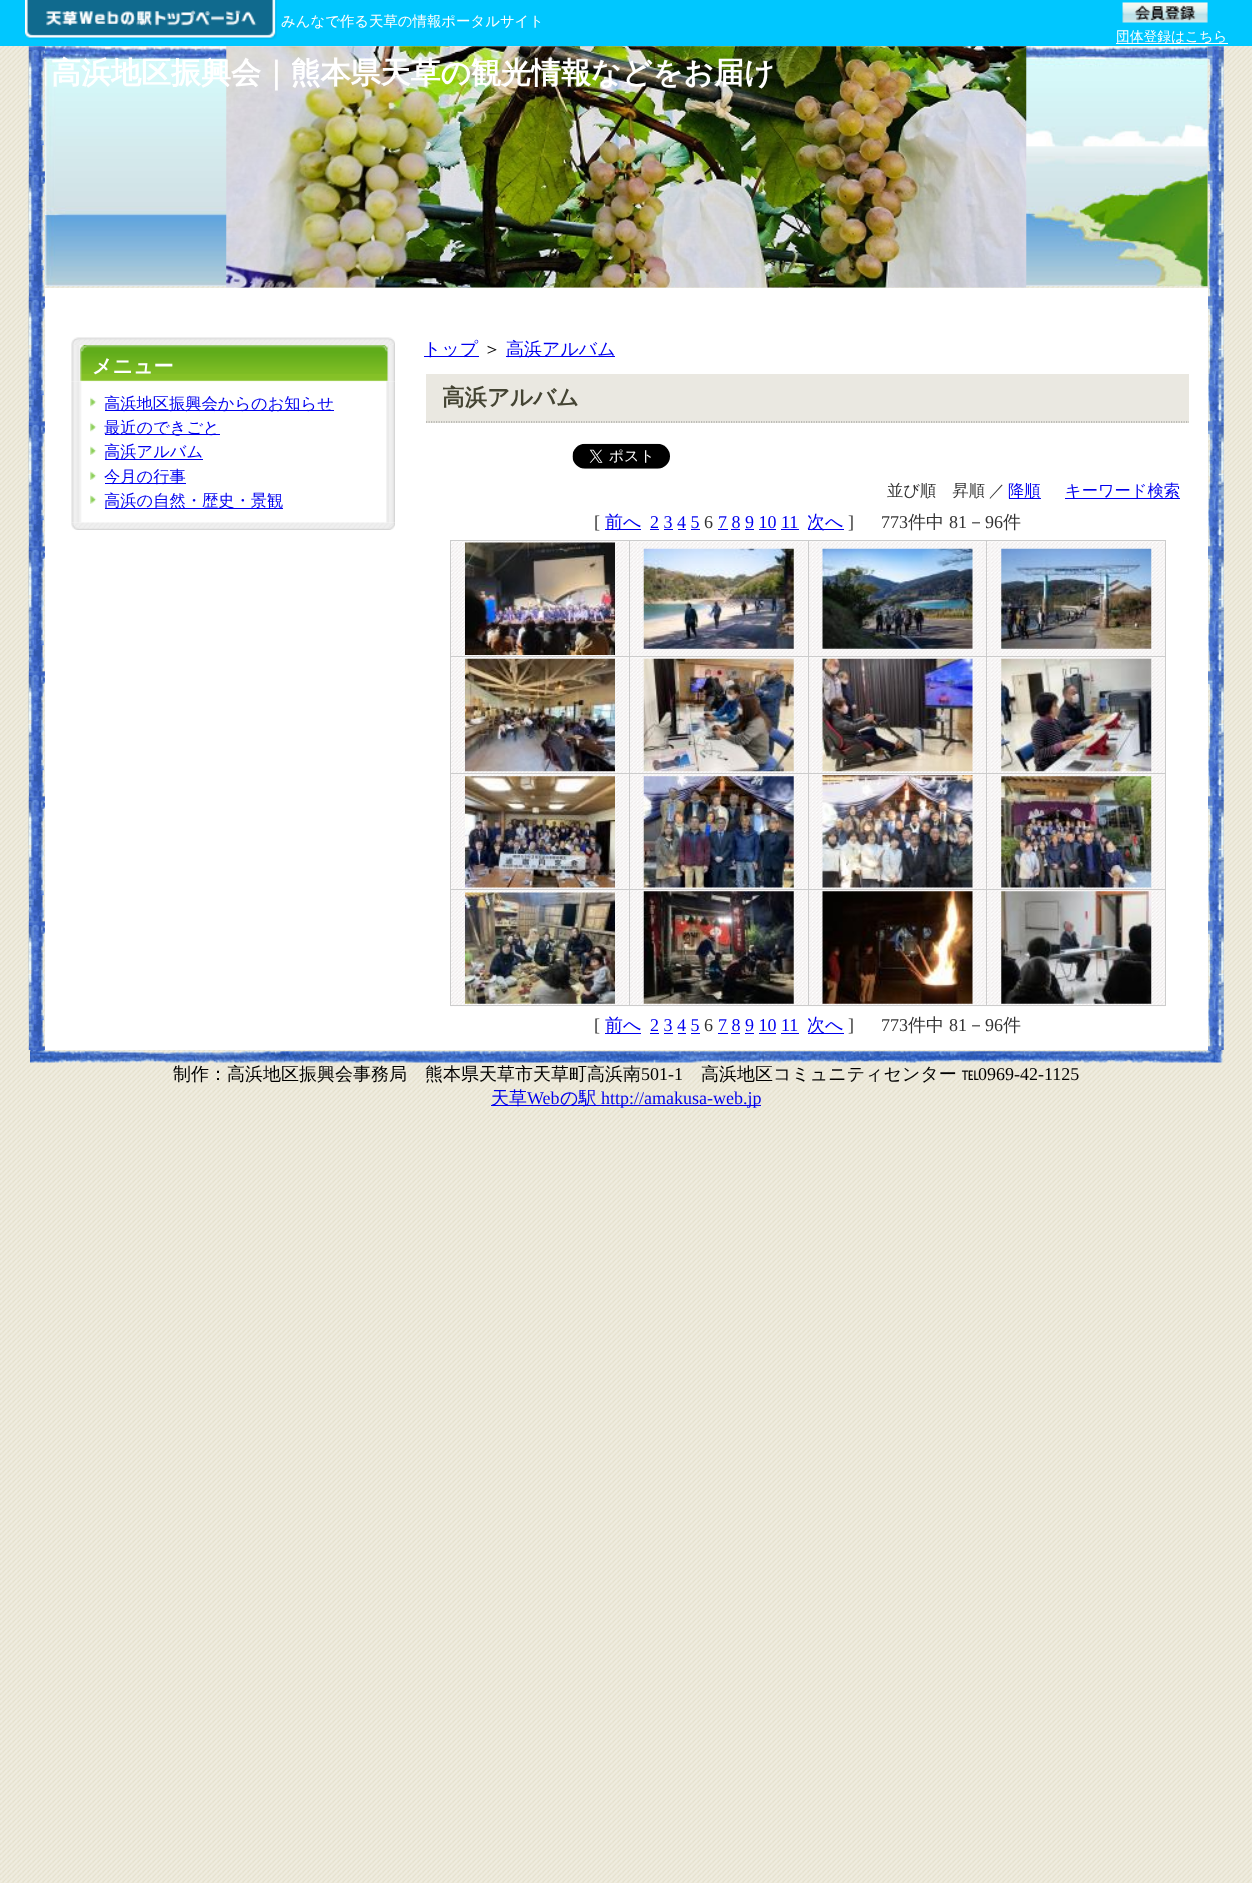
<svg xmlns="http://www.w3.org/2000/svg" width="1252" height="1883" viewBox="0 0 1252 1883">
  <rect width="100%" height="100%" fill="#ffffff"/>
  <image x="0" y="46" width="1252" height="1837" href="img1.png"/>
  <rect x="0" y="0" width="1252" height="46" fill="#00c7ff"/>
  <image x="25" y="0" width="252" height="40" href="img2.png"/>
  <text x="281" y="26" font-family="WenQuanYi Zen Hei" font-size="14.4" font-weight="500" fill="#ffffff">みんなで作る天草の情報ポータルサイト</text>
  <image x="1122" y="2" width="86" height="21" href="img3.png"/>
  <rect x="1116" y="43" width="112" height="1" fill="#ffffff"/>
  <text x="1116" y="41" font-family="WenQuanYi Zen Hei" font-size="13.75" font-weight="500" fill="#ffffff">団体登録はこちら</text>
  <image x="28" y="46" width="1196" height="1004" href="img4.png"/>
  <image x="45" y="46" width="1163" height="241" href="img5.png"/>
  <image x="226" y="46" width="801" height="242" href="img6.png"/>
  <text x="51" y="83" font-family="WenQuanYi Zen Hei" font-size="30" font-weight="bold" fill="#ffffff">高浜地区振興会｜熊本県天草の観光情報などをお届け</text>
  <rect x="45" y="288" width="1163" height="762" fill="#ffffff"/>
  <image x="71" y="337" width="324" height="8" href="img7.png"/>
  <image x="71" y="345" width="324" height="36" href="img8.png"/>
  <image x="71" y="381" width="324" height="142" href="img10.png"/>
  <image x="80" y="345" width="308" height="37" href="img9.png"/>
  <text x="92" y="373" font-family="WenQuanYi Zen Hei" font-size="20" font-weight="bold" fill="#ffffff">メニュー</text>
  <image x="90" y="397" width="7" height="10" href="img11.png"/>
  <rect x="105" y="410" width="229" height="1" fill="#0000ee"/>
  <text x="104" y="409" font-family="WenQuanYi Zen Hei" font-size="16.25" font-weight="500" fill="#0000ee">高浜地区振興会からのお知らせ</text>
  <image x="90" y="422" width="7" height="10" href="img11.png"/>
  <rect x="105" y="434" width="115" height="1" fill="#0000ee"/>
  <text x="104" y="433" font-family="WenQuanYi Zen Hei" font-size="16.25" font-weight="500" fill="#0000ee">最近のできごと</text>
  <image x="90" y="446" width="7" height="9" href="img12.png"/>
  <rect x="105" y="459" width="98" height="1" fill="#0000ee"/>
  <text x="104" y="457" font-family="WenQuanYi Zen Hei" font-size="16.25" font-weight="500" fill="#0000ee">高浜アルバム</text>
  <image x="90" y="471" width="7" height="9" href="img12.png"/>
  <rect x="105" y="483" width="81" height="1" fill="#0000ee"/>
  <text x="104" y="482" font-family="WenQuanYi Zen Hei" font-size="16.25" font-weight="500" fill="#0000ee">今月の行事</text>
  <image x="90" y="495" width="7" height="9" href="img13.png"/>
  <rect x="105" y="508" width="178" height="1" fill="#0000ee"/>
  <text x="104" y="506" font-family="WenQuanYi Zen Hei" font-size="16.25" font-weight="500" fill="#0000ee">高浜の自然・歴史・景観</text>
  <image x="71" y="522" width="324" height="8" href="img14.png"/>
  <rect x="424" y="356" width="55" height="1" fill="#0000ee"/>
  <text x="423" y="355" font-family="WenQuanYi Zen Hei" font-size="18" font-weight="500" fill="#0000ee">トップ</text>
  <text x="483" y="355" font-family="WenQuanYi Zen Hei" font-size="18" font-weight="500" fill="#000000">＞</text>
  <rect x="506" y="356" width="109" height="1" fill="#0000ee"/>
  <text x="506" y="355" font-family="WenQuanYi Zen Hei" font-size="18" font-weight="500" fill="#0000ee">高浜アルバム</text>
  <rect x="426" y="374" width="763" height="49" fill="#eae8e1"/>
  <path d="M426 422H1189" fill="none" stroke="#8e8e8e" stroke-width="1.2" stroke-dasharray="1.25 1.25"/>
  <text x="442" y="405" font-family="WenQuanYi Zen Hei" font-size="22.5" font-weight="bold" fill="#444433">高浜アルバム</text>
  <image x="572" y="443" width="98" height="26" href="img15.png"/>
  <text x="887" y="496" word-spacing="-1" font-family="WenQuanYi Zen Hei" font-size="16.25" font-weight="500" fill="#333333">並び順　昇順 ／</text>
  <rect x="1009" y="498" width="32" height="1" fill="#0000ee"/>
  <text x="1008" y="496" font-family="WenQuanYi Zen Hei" font-size="16.25" font-weight="500" fill="#0000ee">降順</text>
  <rect x="1065" y="498" width="115" height="1" fill="#0000ee"/>
  <text x="1065" y="496" font-family="WenQuanYi Zen Hei" font-size="16.25" font-weight="500" fill="#0000ee">キーワード検索</text>
  <text x="594" y="528" font-family="Liberation Serif" font-size="18" fill="#333333">[</text>
  <rect x="605" y="529" width="36" height="1" fill="#0000ee"/>
  <text x="605" y="528" font-family="WenQuanYi Zen Hei" font-size="18" font-weight="500" fill="#0000ee">前へ</text>
  <text x="650" y="528" font-family="Liberation Serif" font-size="18" fill="#0000ee">2 3 4 5</text>
  <rect x="650" y="529" width="9" height="1" fill="#0000ee"/>
  <text x="704" y="528" font-family="Liberation Serif" font-size="18" fill="#333333">6</text>
  <text x="718" y="528" font-family="Liberation Serif" font-size="18" fill="#0000ee">7 8 9 10 11</text>
  <rect x="718" y="529" width="10" height="1" fill="#0000ee"/>
  <rect x="808" y="529" width="36" height="1" fill="#0000ee"/>
  <text x="807" y="528" font-family="WenQuanYi Zen Hei" font-size="18" font-weight="500" fill="#0000ee">次へ</text>
  <text x="848" y="528" font-family="Liberation Serif" font-size="18" fill="#333333" xml:space="preserve">]      773</text>
  <text x="908" y="528" font-family="WenQuanYi Zen Hei" font-size="18" font-weight="500" fill="#333333">件中</text>
  <text x="949" y="528" font-family="Liberation Serif" font-size="18" fill="#333333">81</text>
  <text x="967" y="528" font-family="WenQuanYi Zen Hei" font-size="18" font-weight="500" fill="#333333">－</text>
  <text x="985" y="528" font-family="Liberation Serif" font-size="18" fill="#333333">96</text>
  <text x="1003" y="528" font-family="WenQuanYi Zen Hei" font-size="18" font-weight="500" fill="#333333">件</text>
  <rect x="664" y="529" width="9" height="1" fill="#0000ee"/>
  <rect x="678" y="529" width="8" height="1" fill="#0000ee"/>
  <rect x="691" y="529" width="9" height="1" fill="#0000ee"/>
  <rect x="731" y="529" width="9" height="1" fill="#0000ee"/>
  <rect x="745" y="529" width="9" height="1" fill="#0000ee"/>
  <rect x="759" y="529" width="17" height="1" fill="#0000ee"/>
  <rect x="781" y="529" width="18" height="1" fill="#0000ee"/>
  <image x="451" y="541" width="178" height="117" href="img16.png"/>
  <rect x="986" y="540" width="180" height="1" fill="#cccccc"/>
  <image x="630" y="541" width="178" height="117" href="img18.png"/>
  <image x="807" y="541" width="179" height="117" href="img20.png"/>
  <image x="987" y="541" width="178" height="117" href="img22.png"/>
  <rect x="986" y="656" width="180" height="1" fill="#cccccc"/>
  <rect x="986" y="773" width="180" height="1" fill="#cccccc"/>
  <rect x="986" y="889" width="180" height="1" fill="#cccccc"/>
  <image x="629" y="890" width="179" height="117" href="img42.png"/>
  <image x="807" y="890" width="180" height="117" href="img44.png"/>
  <image x="986" y="890" width="179" height="117" href="img46.png"/>
  <rect x="1165" y="889" width="1" height="117" fill="#cccccc"/>
  <rect x="986" y="1005" width="180" height="1" fill="#cccccc"/>
  <rect x="986" y="889" width="1" height="117" fill="#cccccc"/>
  <rect x="808" y="889" width="180" height="1" fill="#cccccc"/>
  <rect x="986" y="773" width="1" height="117" fill="#cccccc"/>
  <rect x="808" y="773" width="180" height="1" fill="#cccccc"/>
  <rect x="986" y="656" width="1" height="118" fill="#cccccc"/>
  <rect x="808" y="656" width="180" height="1" fill="#cccccc"/>
  <rect x="986" y="540" width="1" height="118" fill="#cccccc"/>
  <rect x="808" y="540" width="180" height="1" fill="#cccccc"/>
  <image x="630" y="657" width="178" height="116" href="img26.png"/>
  <image x="807" y="657" width="179" height="116" href="img28.png"/>
  <image x="630" y="774" width="178" height="115" href="img34.png"/>
  <image x="807" y="774" width="179" height="115" href="img36.png"/>
  <rect x="808" y="1005" width="180" height="1" fill="#cccccc"/>
  <rect x="808" y="889" width="1" height="117" fill="#cccccc"/>
  <rect x="629" y="889" width="180" height="1" fill="#cccccc"/>
  <rect x="808" y="773" width="1" height="117" fill="#cccccc"/>
  <rect x="629" y="773" width="180" height="1" fill="#cccccc"/>
  <rect x="808" y="656" width="1" height="118" fill="#cccccc"/>
  <rect x="629" y="656" width="180" height="1" fill="#cccccc"/>
  <rect x="808" y="540" width="1" height="118" fill="#cccccc"/>
  <rect x="629" y="540" width="180" height="1" fill="#cccccc"/>
  <rect x="629" y="1005" width="180" height="1" fill="#cccccc"/>
  <rect x="629" y="889" width="1" height="117" fill="#cccccc"/>
  <rect x="450" y="889" width="180" height="1" fill="#cccccc"/>
  <rect x="629" y="773" width="1" height="117" fill="#cccccc"/>
  <rect x="450" y="773" width="180" height="1" fill="#cccccc"/>
  <rect x="629" y="656" width="1" height="118" fill="#cccccc"/>
  <rect x="450" y="656" width="180" height="1" fill="#cccccc"/>
  <rect x="629" y="540" width="1" height="118" fill="#cccccc"/>
  <rect x="450" y="540" width="180" height="1" fill="#cccccc"/>
  <image x="450" y="890" width="179" height="117" href="img40.png"/>
  <rect x="450" y="1005" width="180" height="1" fill="#cccccc"/>
  <rect x="450" y="889" width="1" height="117" fill="#cccccc"/>
  <rect x="450" y="773" width="1" height="117" fill="#cccccc"/>
  <rect x="450" y="656" width="1" height="118" fill="#cccccc"/>
  <rect x="450" y="540" width="1" height="118" fill="#cccccc"/>
  <image x="465" y="542" width="150" height="113" href="img17.png"/>
  <image x="643" y="548" width="151" height="101" href="img19.png"/>
  <image x="822" y="548" width="151" height="101" href="img21.png"/>
  <rect x="1165" y="773" width="1" height="117" fill="#cccccc"/>
  <rect x="1165" y="656" width="1" height="118" fill="#cccccc"/>
  <rect x="1165" y="540" width="1" height="118" fill="#cccccc"/>
  <image x="1001" y="548" width="151" height="101" href="img23.png"/>
  <image x="451" y="657" width="178" height="116" href="img24.png"/>
  <image x="465" y="658" width="150" height="114" href="img25.png"/>
  <image x="643" y="658" width="151" height="114" href="img27.png"/>
  <image x="822" y="658" width="151" height="114" href="img29.png"/>
  <image x="987" y="657" width="178" height="116" href="img30.png"/>
  <image x="1001" y="658" width="151" height="114" href="img31.png"/>
  <image x="451" y="774" width="178" height="115" href="img32.png"/>
  <image x="465" y="776" width="150" height="112" href="img33.png"/>
  <image x="643" y="776" width="151" height="112" href="img35.png"/>
  <image x="822" y="775" width="151" height="113" href="img37.png"/>
  <image x="987" y="774" width="178" height="115" href="img38.png"/>
  <image x="1001" y="776" width="151" height="112" href="img39.png"/>
  <image x="465" y="892" width="150" height="112" href="img41.png"/>
  <image x="643" y="891" width="151" height="113" href="img43.png"/>
  <image x="822" y="891" width="151" height="113" href="img45.png"/>
  <image x="1001" y="891" width="151" height="113" href="img47.png"/>
  <text x="594" y="1031" font-family="Liberation Serif" font-size="18" fill="#333333">[</text>
  <rect x="605" y="1033" width="36" height="1" fill="#0000ee"/>
  <text x="605" y="1031" font-family="WenQuanYi Zen Hei" font-size="18" font-weight="500" fill="#0000ee">前へ</text>
  <text x="650" y="1031" font-family="Liberation Serif" font-size="18" fill="#0000ee">2 3 4 5</text>
  <rect x="650" y="1033" width="9" height="1" fill="#0000ee"/>
  <text x="704" y="1031" font-family="Liberation Serif" font-size="18" fill="#333333">6</text>
  <text x="718" y="1031" font-family="Liberation Serif" font-size="18" fill="#0000ee">7 8 9 10 11</text>
  <rect x="718" y="1033" width="10" height="1" fill="#0000ee"/>
  <rect x="808" y="1033" width="36" height="1" fill="#0000ee"/>
  <text x="807" y="1031" font-family="WenQuanYi Zen Hei" font-size="18" font-weight="500" fill="#0000ee">次へ</text>
  <text x="848" y="1031" font-family="Liberation Serif" font-size="18" fill="#333333" xml:space="preserve">]      773</text>
  <text x="908" y="1031" font-family="WenQuanYi Zen Hei" font-size="18" font-weight="500" fill="#333333">件中</text>
  <text x="949" y="1031" font-family="Liberation Serif" font-size="18" fill="#333333">81</text>
  <text x="967" y="1031" font-family="WenQuanYi Zen Hei" font-size="18" font-weight="500" fill="#333333">－</text>
  <text x="985" y="1031" font-family="Liberation Serif" font-size="18" fill="#333333">96</text>
  <text x="1003" y="1031" font-family="WenQuanYi Zen Hei" font-size="18" font-weight="500" fill="#333333">件</text>
  <rect x="664" y="1033" width="9" height="1" fill="#0000ee"/>
  <rect x="678" y="1033" width="8" height="1" fill="#0000ee"/>
  <rect x="691" y="1033" width="9" height="1" fill="#0000ee"/>
  <rect x="731" y="1033" width="9" height="1" fill="#0000ee"/>
  <rect x="745" y="1033" width="9" height="1" fill="#0000ee"/>
  <rect x="759" y="1033" width="17" height="1" fill="#0000ee"/>
  <rect x="781" y="1033" width="18" height="1" fill="#0000ee"/>
  <image x="30" y="1050" width="1193" height="13" href="img48.png"/>
  <text x="173" y="1080" font-family="WenQuanYi Zen Hei" font-size="18" font-weight="500" fill="#000000">制作：高浜地区振興会事務局　熊本県天草市天草町高浜南</text>
  <text x="641" y="1080" font-family="Liberation Serif" font-size="18" fill="#000000">501-1</text>
  <text x="701" y="1080" word-spacing="-1" font-family="WenQuanYi Zen Hei" font-size="18" font-weight="500" fill="#000000">高浜地区コミュニティセンター ℡</text>
  <text x="978" y="1080" font-family="Liberation Serif" font-size="18" fill="#000000">0969-42-1125</text>
  <rect x="491" y="1105" width="270" height="1" fill="#0000ee"/>
  <text x="491" y="1104" font-family="WenQuanYi Zen Hei" font-size="18" font-weight="500" fill="#0000ee">天草</text>
  <text x="527" y="1104" font-family="Liberation Serif" font-size="18" fill="#0000ee">Web</text>
  <text x="560" y="1104" font-family="WenQuanYi Zen Hei" font-size="18" font-weight="500" fill="#0000ee">の駅</text>
  <text x="601" y="1104" font-family="Liberation Serif" font-size="18" fill="#0000ee">http://amakusa-web.jp</text>
</svg>
